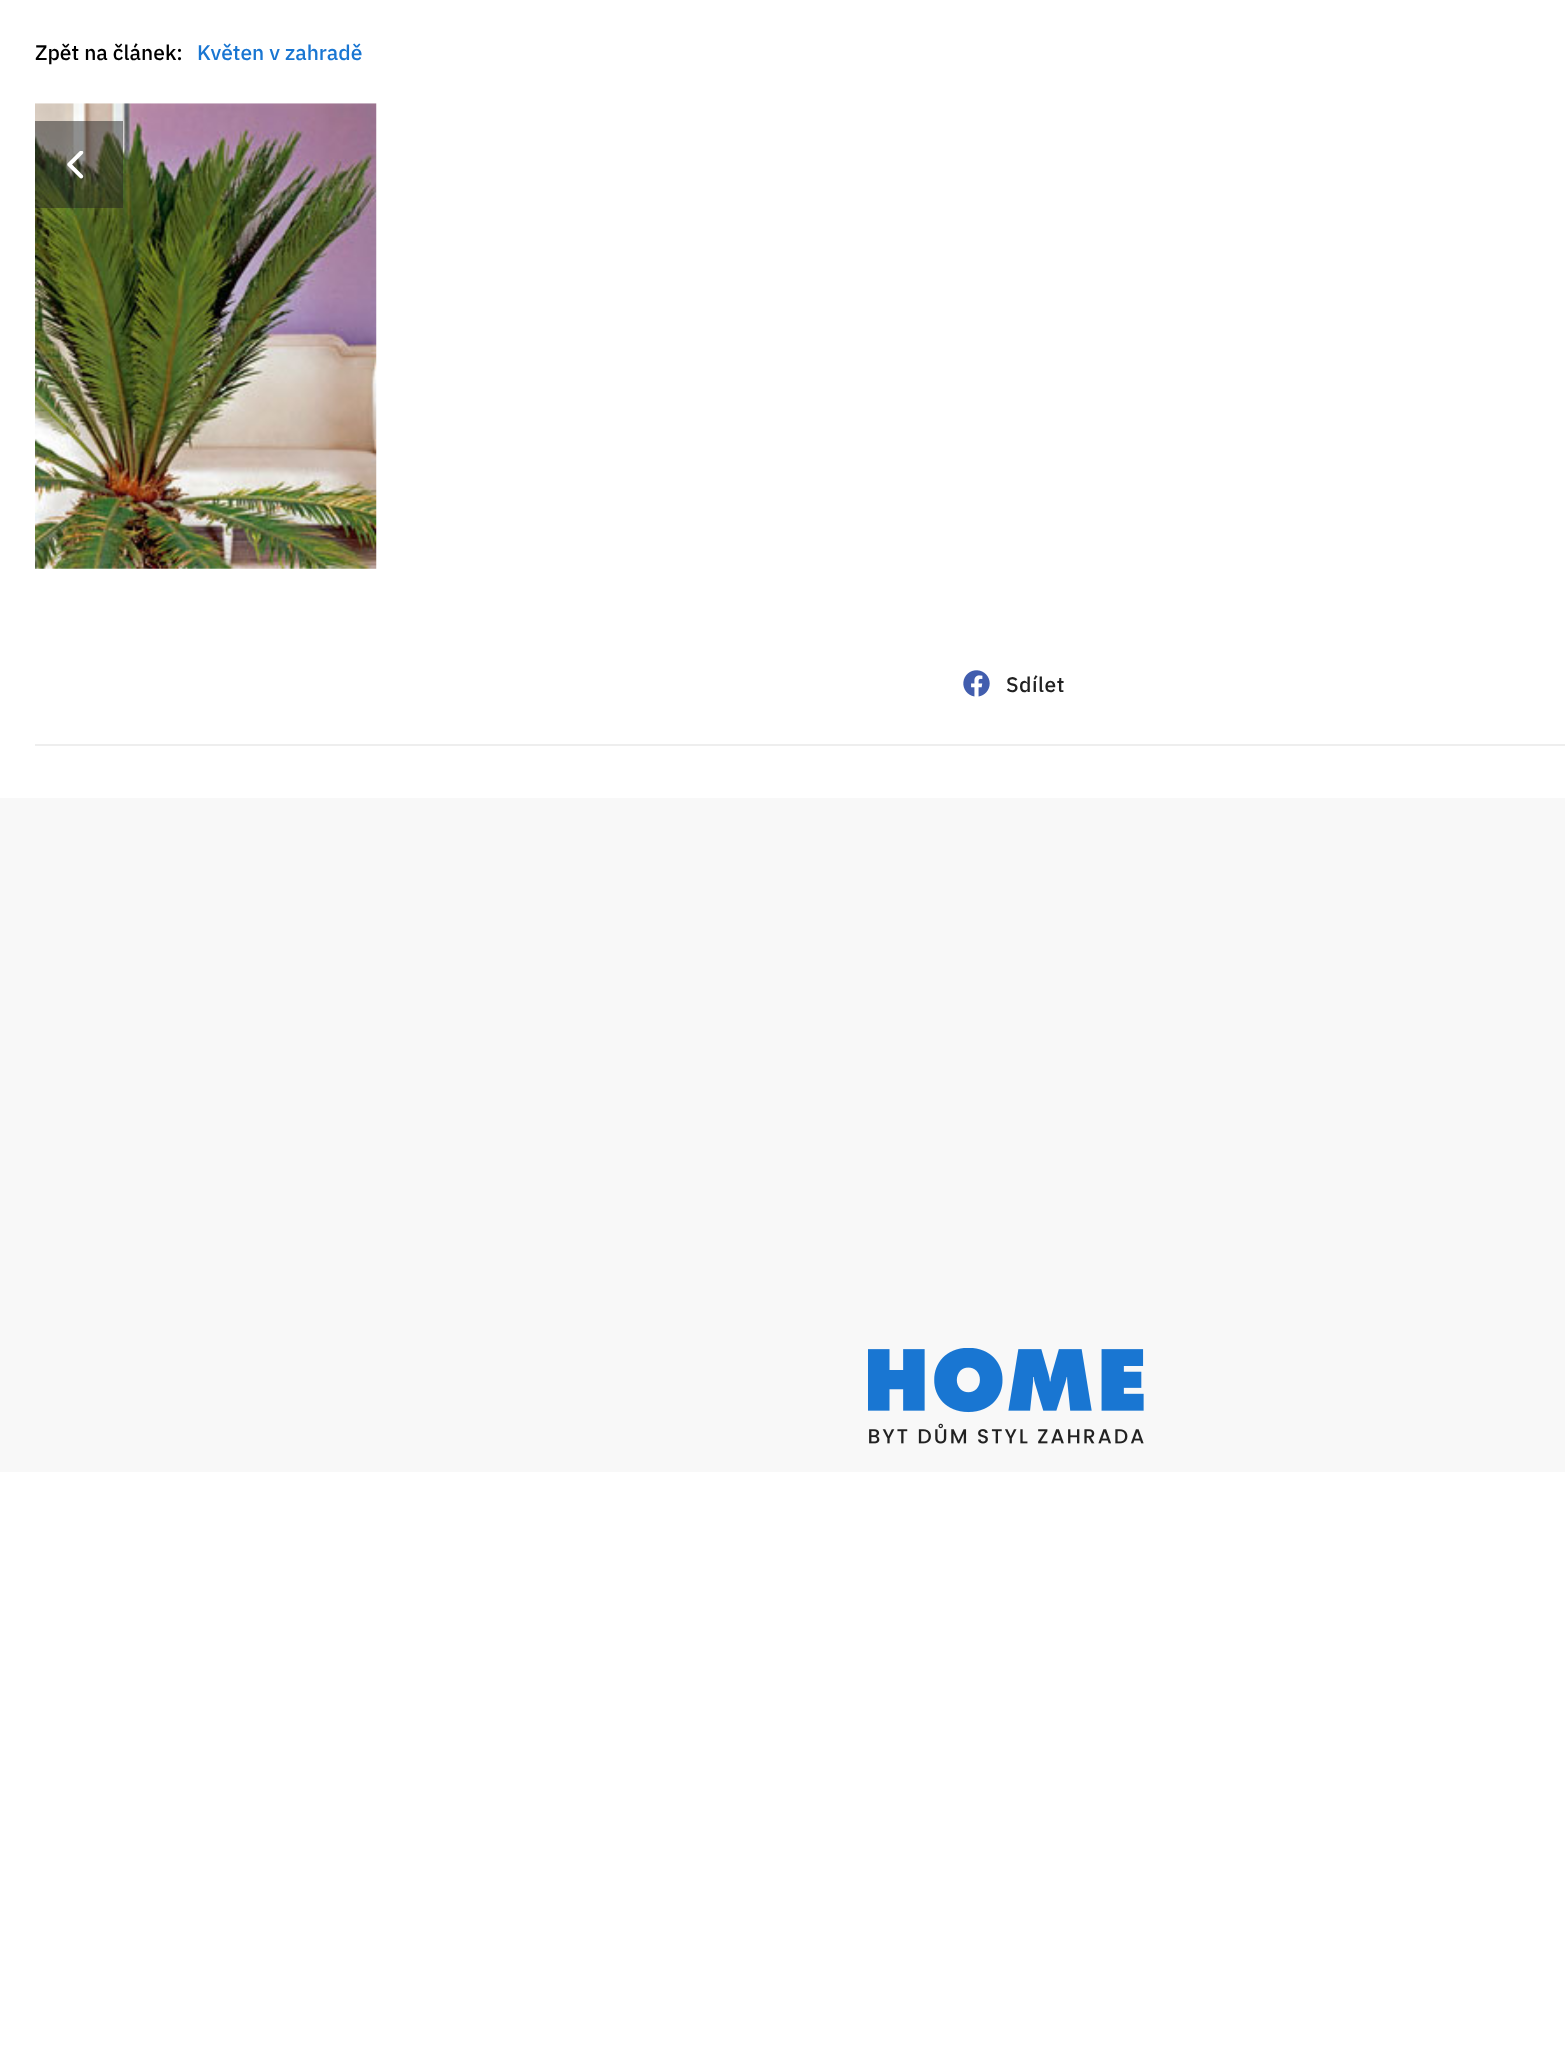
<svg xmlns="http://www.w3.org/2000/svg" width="1565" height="2047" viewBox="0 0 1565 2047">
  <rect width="100%" height="100%" fill="#ffffff"/>
  <text x="35" y="60" font-family="IBM Plex Sans" font-size="21" font-weight="500" fill="#000000">Zpět na článek:</text>
  <text x="197" y="60" font-family="IBM Plex Sans" font-size="21" font-weight="500" fill="#1976d2">Květen v zahradě</text>
  <image x="35" y="103" width="342" height="466" href="img1.png"/>
  <rect x="35" y="121" width="88" height="87" fill="#212121" fill-opacity="0.5"/>
  <image x="67" y="151" width="17" height="28" href="img2.png"/>
  <rect x="35" y="744" width="1530" height="2" fill="#eeeeee"/>
  <image x="963" y="670" width="27" height="27" href="img3.png"/>
  <text x="1006" y="692" font-family="IBM Plex Sans" font-size="21" font-weight="500" letter-spacing="0.5" fill="#212121">Sdílet</text>
  <rect x="0" y="798" width="1565" height="674" fill="#f8f8f8"/>
  <image x="868" y="1348" width="276" height="96" href="img4.png"/>
</svg>
